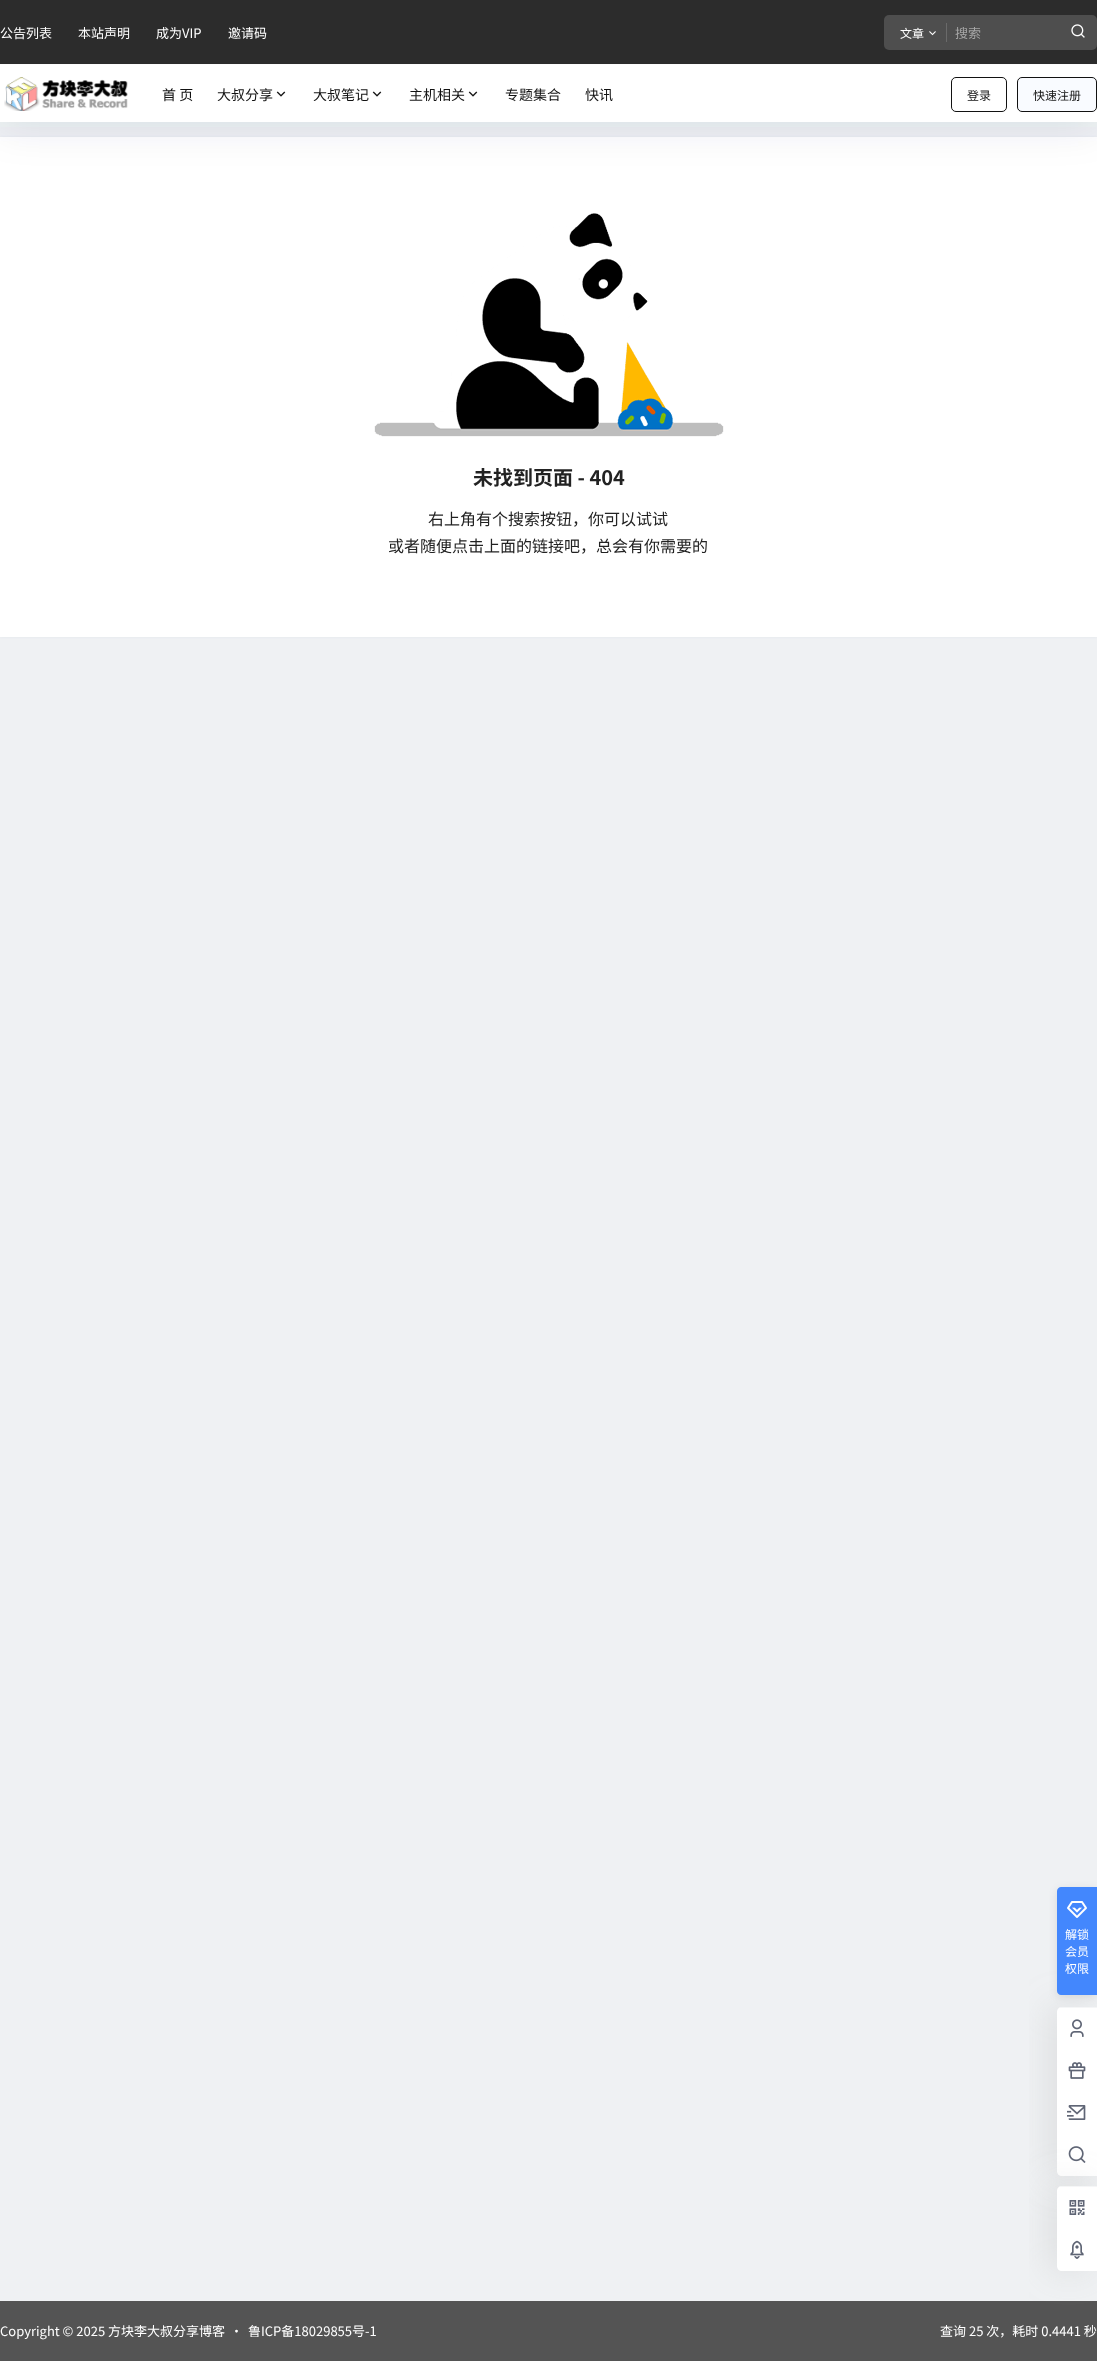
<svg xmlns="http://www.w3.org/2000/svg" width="1097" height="2361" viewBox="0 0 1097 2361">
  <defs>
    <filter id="blur1" x="-50%" y="-200%" width="200%" height="500%"><feGaussianBlur stdDeviation="1"/></filter>
    <filter id="blur2" x="-50%" y="-200%" width="200%" height="500%"><feGaussianBlur stdDeviation="20"/></filter>
    <filter id="blur3" x="-50%" y="-200%" width="200%" height="500%"><feGaussianBlur stdDeviation="17.5"/></filter>
    <filter id="blur4" x="-50%" y="-200%" width="200%" height="500%"><feGaussianBlur stdDeviation="4"/></filter>
  </defs>
  <rect width="100%" height="100%" fill="#eff1f3"/>
  <rect x="0" y="137" width="1097" height="500" fill="#627c99" fill-opacity="0.1" filter="url(#blur1)"/>
  <rect x="0" y="137" width="1097" height="500" fill="#ffffff"/>
  <rect x="0" y="5" width="1097" height="122" fill="#113a5d" fill-opacity="0.1" filter="url(#blur2)"/>
  <rect x="0" y="0" width="1097" height="64" fill="#2c2c2c"/>
  <text x="0" y="38" font-family="Noto Sans CJK SC" font-size="13" fill="#ffffff">公告列表</text>
  <text x="78" y="38" font-family="Noto Sans CJK SC" font-size="13" fill="#ffffff">本站声明</text>
  <text x="156" y="38" font-family="Noto Sans CJK SC" font-size="13" fill="#ffffff">成为VIP</text>
  <text x="228" y="38" font-family="Noto Sans CJK SC" font-size="13" fill="#ffffff">邀请码</text>
  <rect x="884" y="15" width="213" height="35" rx="5" fill="#4e4e4e"/>
  <rect x="946" y="23" width="1" height="19" fill="#6a6a6a"/>
  <text x="900" y="38" font-family="Noto Sans CJK SC" font-size="12" fill="#ffffff">文章</text>
  <image x="929" y="31" width="7" height="5" href="img1.png"/>
  <text x="955" y="38" font-family="Noto Sans CJK SC" font-size="13" fill="#a7a7a7">搜索</text>
  <image x="1071" y="24" width="14" height="14" href="img2.png"/>
  <rect x="0" y="65" width="1097" height="57" fill="#ffffff"/>
  <rect x="0" y="64" width="1097" height="1" fill="#fcfcfc"/>
  <image x="4" y="77" width="124" height="34" href="img3.png"/>
  <text x="162" y="100" font-family="Noto Sans CJK SC" font-size="14" fill="#121212">首 页</text>
  <text x="217" y="100" font-family="Noto Sans CJK SC" font-size="14" fill="#121212">大叔分享</text>
  <image x="276" y="91" width="10" height="6" href="img4.png"/>
  <text x="313" y="100" font-family="Noto Sans CJK SC" font-size="14" fill="#121212">大叔笔记</text>
  <image x="372" y="91" width="10" height="6" href="img4.png"/>
  <text x="409" y="100" font-family="Noto Sans CJK SC" font-size="14" fill="#121212">主机相关</text>
  <image x="468" y="91" width="10" height="6" href="img4.png"/>
  <text x="505" y="100" font-family="Noto Sans CJK SC" font-size="14" fill="#121212">专题集合</text>
  <text x="585" y="100" font-family="Noto Sans CJK SC" font-size="14" fill="#121212">快讯</text>
  <rect x="951.5" y="77.5" width="55" height="34" rx="4.5" fill="none" stroke="#121212"/>
  <text x="967" y="100" font-family="Noto Sans CJK SC" font-size="12" fill="#121212">登录</text>
  <rect x="1017.5" y="77.5" width="79" height="34" rx="4.5" fill="#f9fbff" stroke="#121212"/>
  <text x="1033" y="100" font-family="Noto Sans CJK SC" font-size="12" fill="#121212">快速注册</text>
  <image x="374" y="213" width="350" height="224" href="img5.png"/>
  <text x="473" y="485" font-family="Noto Sans CJK SC" font-size="20" font-weight="bold" fill="#222222">未找到页面 - 404</text>
  <text x="428" y="525" font-family="Noto Sans CJK SC" font-size="16" fill="#222222">右上角有个搜索按钮，你可以试试</text>
  <text x="388" y="552" font-family="Noto Sans CJK SC" font-size="16" fill="#222222">或者随便点击上面的链接吧，总会有你需要的</text>
  <rect x="1049" y="2007" width="40" height="169" rx="5" fill="#b5b5b5" fill-opacity="0.32" filter="url(#blur3)"/>
  <path d="M1062 2007H1097V2176H1062C1059 2176 1057 2174 1057 2171V2012C1057 2009 1059 2007 1062 2007Z" fill="#ffffff"/>
  <rect x="1060" y="2007" width="37" height="1" fill="#f5f6f7"/>
  <rect x="1057" y="1889" width="40" height="108" rx="5" fill="#000000" fill-opacity="0.1" filter="url(#blur4)"/>
  <path d="M1061 1887H1097V1995H1061C1059 1995 1057 1993 1057 1991V1891C1057 1889 1059 1887 1061 1887Z" fill="#4387fd"/>
  <image x="1067" y="1901" width="20" height="17" href="img6.png"/>
  <text x="1065" y="1939" font-family="Noto Sans CJK SC" font-size="12" fill="#ffffff">解锁</text>
  <text x="1065" y="1956" font-family="Noto Sans CJK SC" font-size="12" fill="#ffffff">会员</text>
  <text x="1065" y="1973" font-family="Noto Sans CJK SC" font-size="12" fill="#ffffff">权限</text>
  <image x="1070" y="2019" width="14" height="18" href="img7.png"/>
  <image x="1068" y="2062" width="18" height="17" href="img8.png"/>
  <image x="1067" y="2105" width="19" height="15" href="img9.png"/>
  <image x="1068" y="2146" width="18" height="17" href="img10.png"/>
  <rect x="0" y="2301" width="1097" height="60" fill="#545454"/>
  <rect x="1049" y="2186" width="40" height="85" rx="5" fill="#b5b5b5" fill-opacity="0.32" filter="url(#blur3)"/>
  <path d="M1062 2186H1097V2271H1062C1059 2271 1057 2269 1057 2266V2191C1057 2188 1059 2186 1062 2186Z" fill="#ffffff"/>
  <rect x="1060" y="2186" width="37" height="1" fill="#f5f6f7"/>
  <image x="1069" y="2200" width="16" height="15" href="img11.png"/>
  <image x="1070" y="2240" width="14" height="19" href="img12.png"/>
  <text x="0" y="2336" font-family="Noto Sans CJK SC" font-size="13" fill="#ffffff">Copyright © 2025 方块李大叔分享博客</text>
  <text x="230" y="2336" font-family="Noto Sans CJK SC" font-size="13" fill="#ffffff">・</text>
  <text x="248" y="2336" font-family="Noto Sans CJK SC" font-size="13" fill="#ffffff">鲁ICP备18029855号-1</text>
  <text x="940" y="2336" font-family="Noto Sans CJK SC" font-size="13" fill="#ffffff">查询 25 次，耗时 0.4441 秒</text>
</svg>
